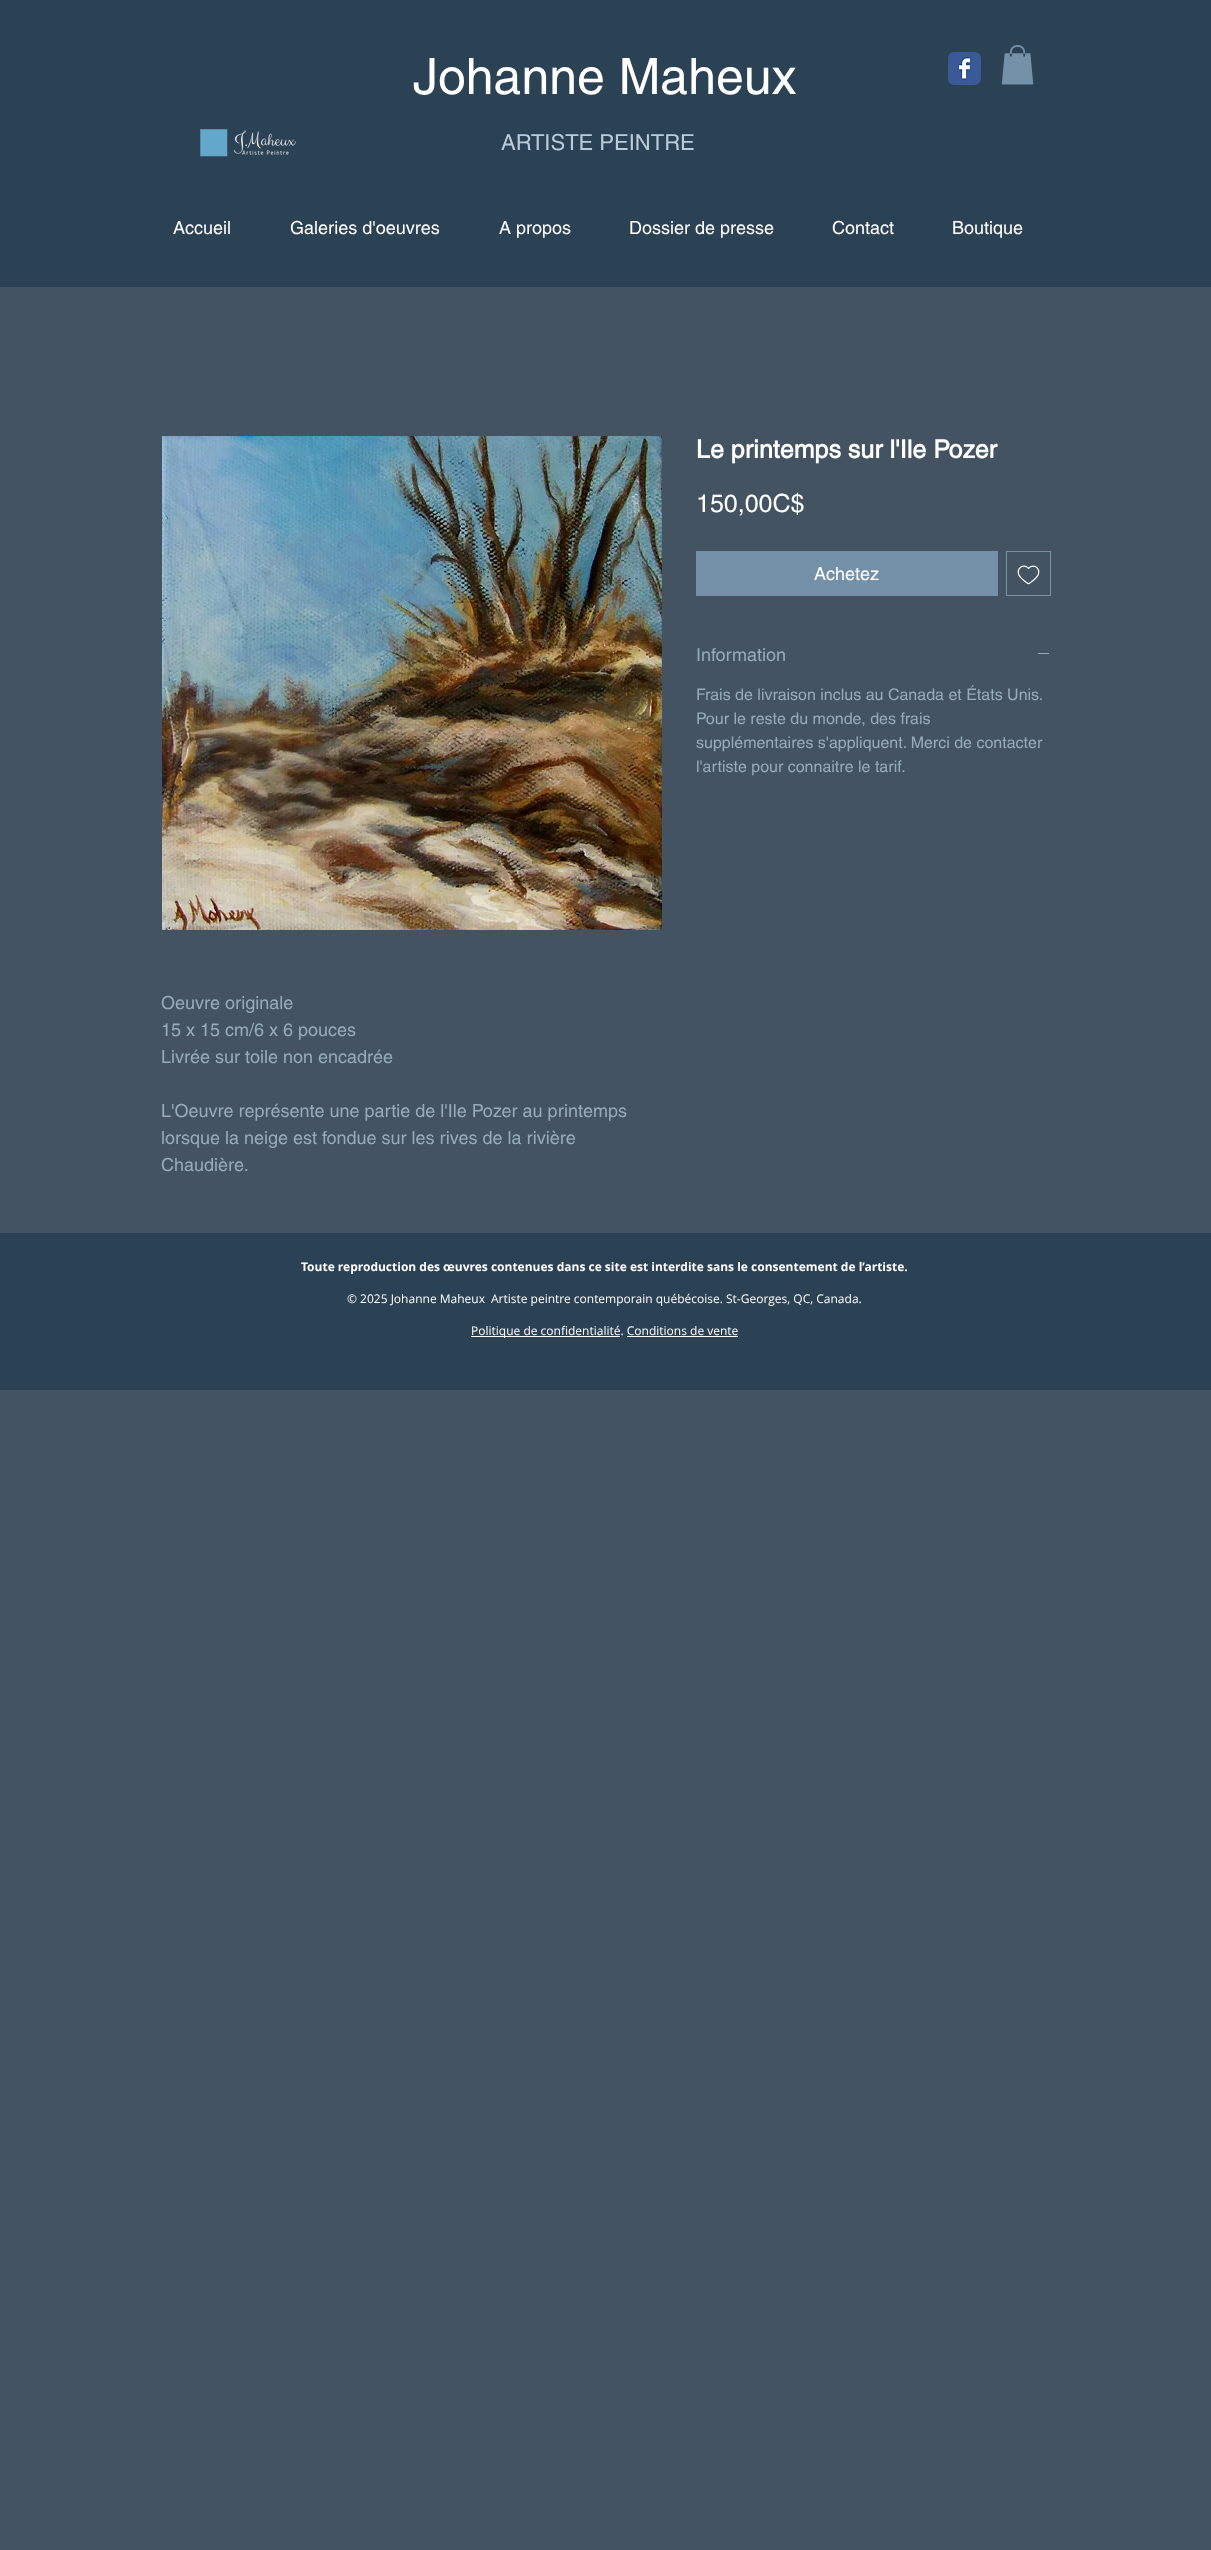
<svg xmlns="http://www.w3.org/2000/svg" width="1211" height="2550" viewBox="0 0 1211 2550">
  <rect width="100%" height="100%" fill="#435361"/>
  <rect x="0" y="0" width="1211" height="287" fill="#2b4154"/>
  <text x="413" y="94" font-family="helvetica" font-size="50" fill="#ffffff">Johanne Maheux</text>
  <image x="948" y="52" width="33" height="33" href="img1.png"/>
  <image x="1001" y="45" width="33" height="40" href="img2.png"/>
  <image x="200" y="129" width="97" height="28" href="img3.png"/>
  <text x="501" y="150" font-family="helvetica" font-size="22" fill="#baccda">ARTISTE PEINTRE</text>
  <text x="173" y="234" font-family="helvetica" font-size="18" fill="#ffffff">Accueil</text>
  <text x="290" y="234" font-family="helvetica" font-size="18" fill="#ffffff">Galeries d'oeuvres</text>
  <text x="499" y="234" font-family="helvetica" font-size="18" fill="#ffffff">A propos</text>
  <text x="629" y="234" font-family="helvetica" font-size="18" fill="#ffffff">Dossier de presse</text>
  <text x="832" y="234" font-family="helvetica" font-size="18" fill="#ffffff">Contact</text>
  <text x="952" y="234" font-family="helvetica" font-size="18" fill="#ffffff">Boutique</text>
  <text x="696" y="458" font-family="helvetica" font-size="25" font-weight="bold" fill="#ffffff">Le printemps sur l'Ile Pozer</text>
  <text x="696" y="512" font-family="helvetica" font-size="25" fill="#ffffff">150,00C$</text>
  <rect x="696" y="551" width="302" height="45" fill="#7491a8"/>
  <text x="814" y="580" font-family="helvetica" font-size="18" fill="#ffffff">Achetez</text>
  <rect x="1006.5" y="551.5" width="44" height="44" fill="none" stroke="#7491a8"/>
  <image x="1017" y="565" width="23" height="20" href="img4.png"/>
  <text x="696" y="661" font-family="helvetica" font-size="18" fill="#97abba">Information</text>
  <rect x="1038" y="653" width="11" height="1" fill="#97abba"/>
  <text x="696" y="700" font-family="helvetica" font-size="16" fill="#97abba">Frais de livraison inclus au Canada et États Unis.</text>
  <text x="696" y="724" font-family="helvetica" font-size="16" fill="#97abba">Pour le reste du monde, des frais</text>
  <text x="696" y="748" font-family="helvetica" font-size="16" fill="#97abba">supplémentaires s'appliquent. Merci de contacter</text>
  <text x="696" y="772" font-family="helvetica" font-size="16" fill="#97abba">l'artiste pour connaitre le tarif.</text>
  <image x="162" y="436" width="500" height="494" href="img5.png"/>
  <text x="161" y="1009" font-family="helvetica" font-size="18" fill="#97abba">Oeuvre originale</text>
  <text x="161" y="1036" font-family="helvetica" font-size="18" fill="#97abba">15 x 15 cm/6 x 6 pouces</text>
  <text x="161" y="1063" font-family="helvetica" font-size="18" fill="#97abba">Livrée sur toile non encadrée</text>
  <text x="161" y="1117" font-family="helvetica" font-size="18" fill="#97abba">L'Oeuvre représente une partie de l'Ile Pozer au printemps</text>
  <text x="161" y="1144" font-family="helvetica" font-size="18" fill="#97abba">lorsque la neige est fondue sur les rives de la rivière</text>
  <text x="161" y="1171" font-family="helvetica" font-size="18" fill="#97abba">Chaudière.</text>
  <rect x="0" y="1233" width="1211" height="157" fill="#2b4154"/>
  <text x="301" y="1271" font-family="Open Sans" font-size="12" font-weight="bold" fill="#ffffff">Toute reproduction des œuvres contenues dans ce site est interdite sans le consentement de l’artiste.</text>
  <text x="347" y="1303" font-family="Open Sans" font-size="12" fill="#ffffff">© 2025 Johanne Maheux</text>
  <text x="491" y="1303" font-family="Open Sans" font-size="12" fill="#ffffff">Artiste peintre contemporain québécoise. St-Georges, QC, Canada.</text>
  <rect x="471" y="1336" width="149" height="1" fill="#ffffff"/>
  <text x="471" y="1335" font-family="Open Sans" font-size="12" fill="#ffffff">Politique de confidentialité. Conditions de vente</text>
  <rect x="627" y="1336" width="111" height="1" fill="#ffffff"/>
</svg>
